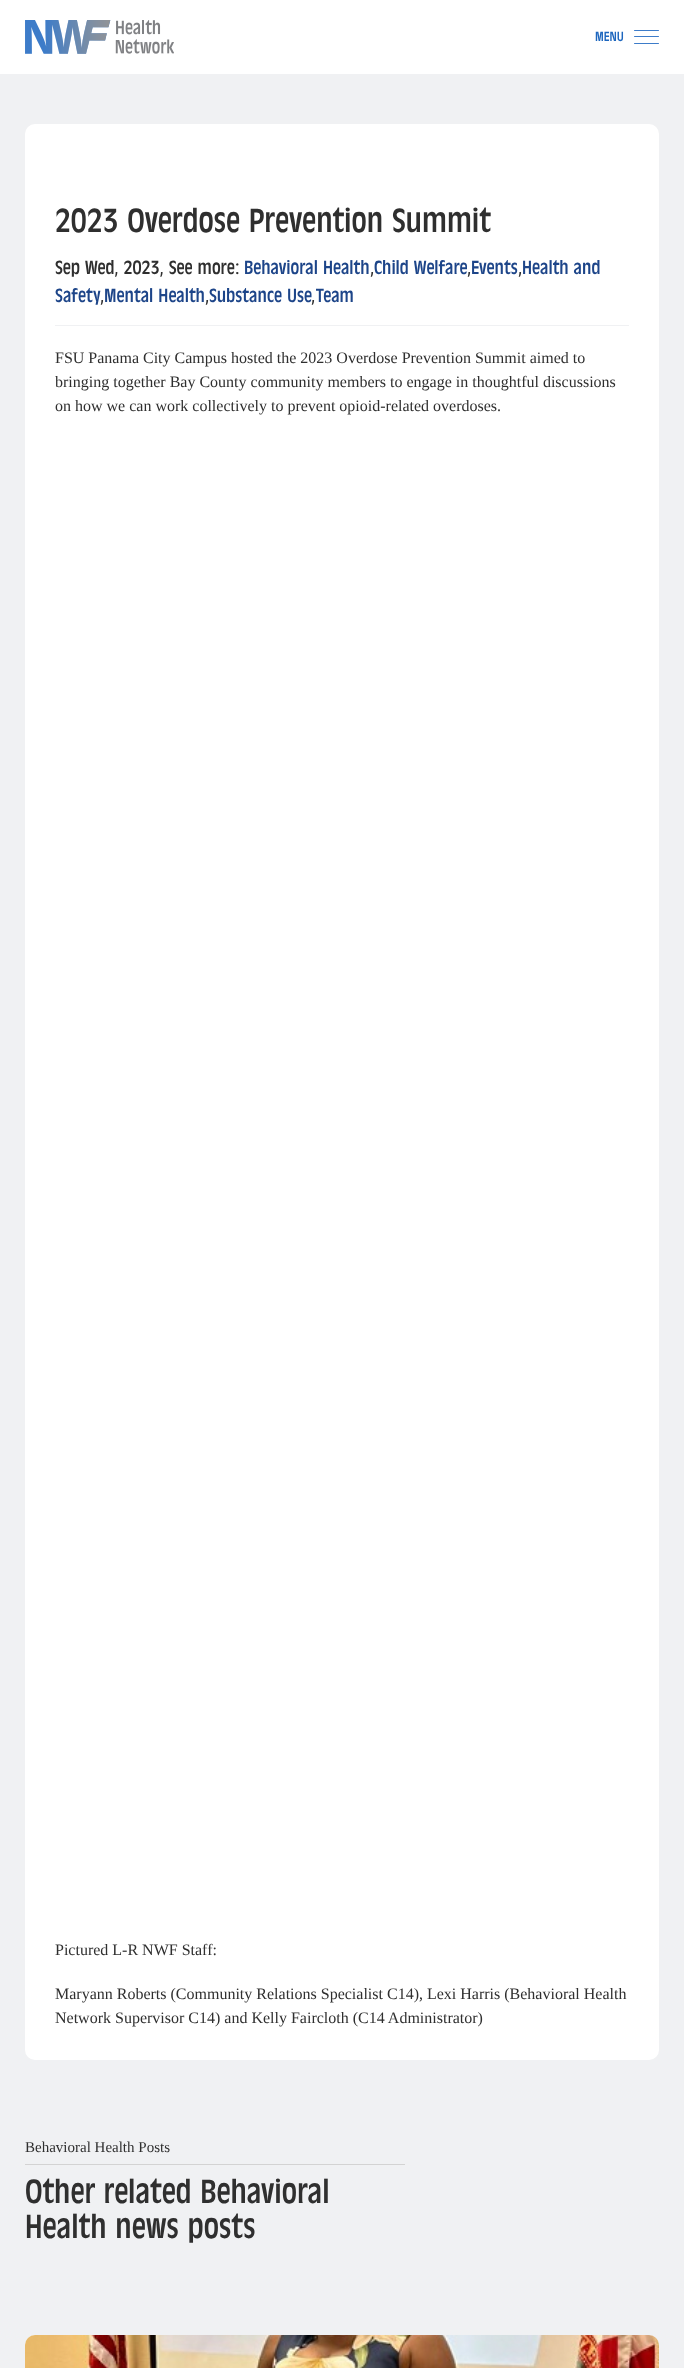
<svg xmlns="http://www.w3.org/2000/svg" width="684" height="2368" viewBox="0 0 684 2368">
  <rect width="100%" height="100%" fill="#f0f1f3"/>
  <rect x="0" y="0" width="684" height="74" fill="#ffffff"/>
  <image x="25" y="20" width="149" height="34" href="img1.png"/>
  <rect x="634" y="30" width="25" height="1" rx="0.5" fill="#3d7cc9"/>
  <text x="595" y="41" font-family="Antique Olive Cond" font-size="14" fill="#1d66be">MENU</text>
  <rect x="634" y="36" width="25" height="1" rx="0.5" fill="#3d7cc9"/>
  <rect x="634" y="43" width="25" height="1" rx="0.5" fill="#3d7cc9"/>
  <rect x="25" y="124" width="634" height="1936" rx="10" fill="#ffffff"/>
  <rect x="55" y="325" width="574" height="1" fill="#f0f1f3"/>
  <text x="55" y="232" font-family="Antique Olive Cond" font-size="35" fill="#2f2f2f">2023 Overdose Prevention Summit</text>
  <text x="55" y="274" font-family="Antique Olive Cond" font-size="20" fill="#2f2f2f">Sep Wed, 2023, See more:</text>
  <text x="244" y="274" font-family="Antique Olive Cond" font-size="20" fill="#1d4589">Behavioral Health</text>
  <text x="370" y="274" font-family="Antique Olive Cond" font-size="20" fill="#2f2f2f">,</text>
  <text x="374" y="274" font-family="Antique Olive Cond" font-size="20" fill="#1d4589">Child Welfare</text>
  <text x="467" y="274" font-family="Antique Olive Cond" font-size="20" fill="#2f2f2f">,</text>
  <text x="471" y="274" font-family="Antique Olive Cond" font-size="20" fill="#1d4589">Events</text>
  <text x="518" y="274" font-family="Antique Olive Cond" font-size="20" fill="#2f2f2f">,</text>
  <text x="522" y="274" font-family="Antique Olive Cond" font-size="20" fill="#1d4589">Health and</text>
  <text x="55" y="302" font-family="Antique Olive Cond" font-size="20" fill="#1d4589">Safety</text>
  <text x="100" y="302" font-family="Antique Olive Cond" font-size="20" fill="#2f2f2f">,</text>
  <text x="104" y="302" font-family="Antique Olive Cond" font-size="20" fill="#1d4589">Mental Health</text>
  <text x="205" y="302" font-family="Antique Olive Cond" font-size="20" fill="#2f2f2f">,</text>
  <text x="209" y="302" font-family="Antique Olive Cond" font-size="20" fill="#1d4589">Substance Use</text>
  <text x="311" y="302" font-family="Antique Olive Cond" font-size="20" fill="#2f2f2f">,</text>
  <text x="316" y="302" font-family="Antique Olive Cond" font-size="20" fill="#1d4589">Team</text>
  <text x="55" y="363" font-family="Liberation Serif" font-size="16" fill="#2f2f2f">FSU Panama City Campus hosted the 2023 Overdose Prevention Summit aimed to</text>
  <text x="55" y="387" font-family="Liberation Serif" font-size="16" fill="#2f2f2f">bringing together Bay County community members to engage in thoughtful discussions</text>
  <text x="55" y="411" font-family="Liberation Serif" font-size="16" fill="#2f2f2f">on how we can work collectively to prevent opioid-related overdoses.</text>
  <text x="55" y="1955" font-family="Liberation Serif" font-size="16" fill="#2f2f2f">Pictured L-R NWF Staff:</text>
  <text x="55" y="1999" font-family="Liberation Serif" font-size="16" fill="#2f2f2f">Maryann Roberts (Community Relations Specialist C14), Lexi Harris (Behavioral Health</text>
  <text x="55" y="2023" font-family="Liberation Serif" font-size="16" fill="#2f2f2f">Network Supervisor C14) and Kelly Faircloth (C14 Administrator)</text>
  <rect x="25" y="2164" width="380" height="1" fill="#d3d3d3"/>
  <text x="25" y="2152" font-family="Liberation Serif" font-size="15" fill="#2f2f2f">Behavioral Health Posts</text>
  <text x="25" y="2203" font-family="Antique Olive Cond" font-size="35" fill="#2f2f2f">Other related Behavioral</text>
  <text x="25" y="2238" font-family="Antique Olive Cond" font-size="35" fill="#2f2f2f">Health news posts</text>
  <rect x="25" y="2335" width="634" height="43" rx="10" fill="#ffffff"/>
  <image x="25" y="2335" width="634" height="33" href="img2.png"/>
</svg>
